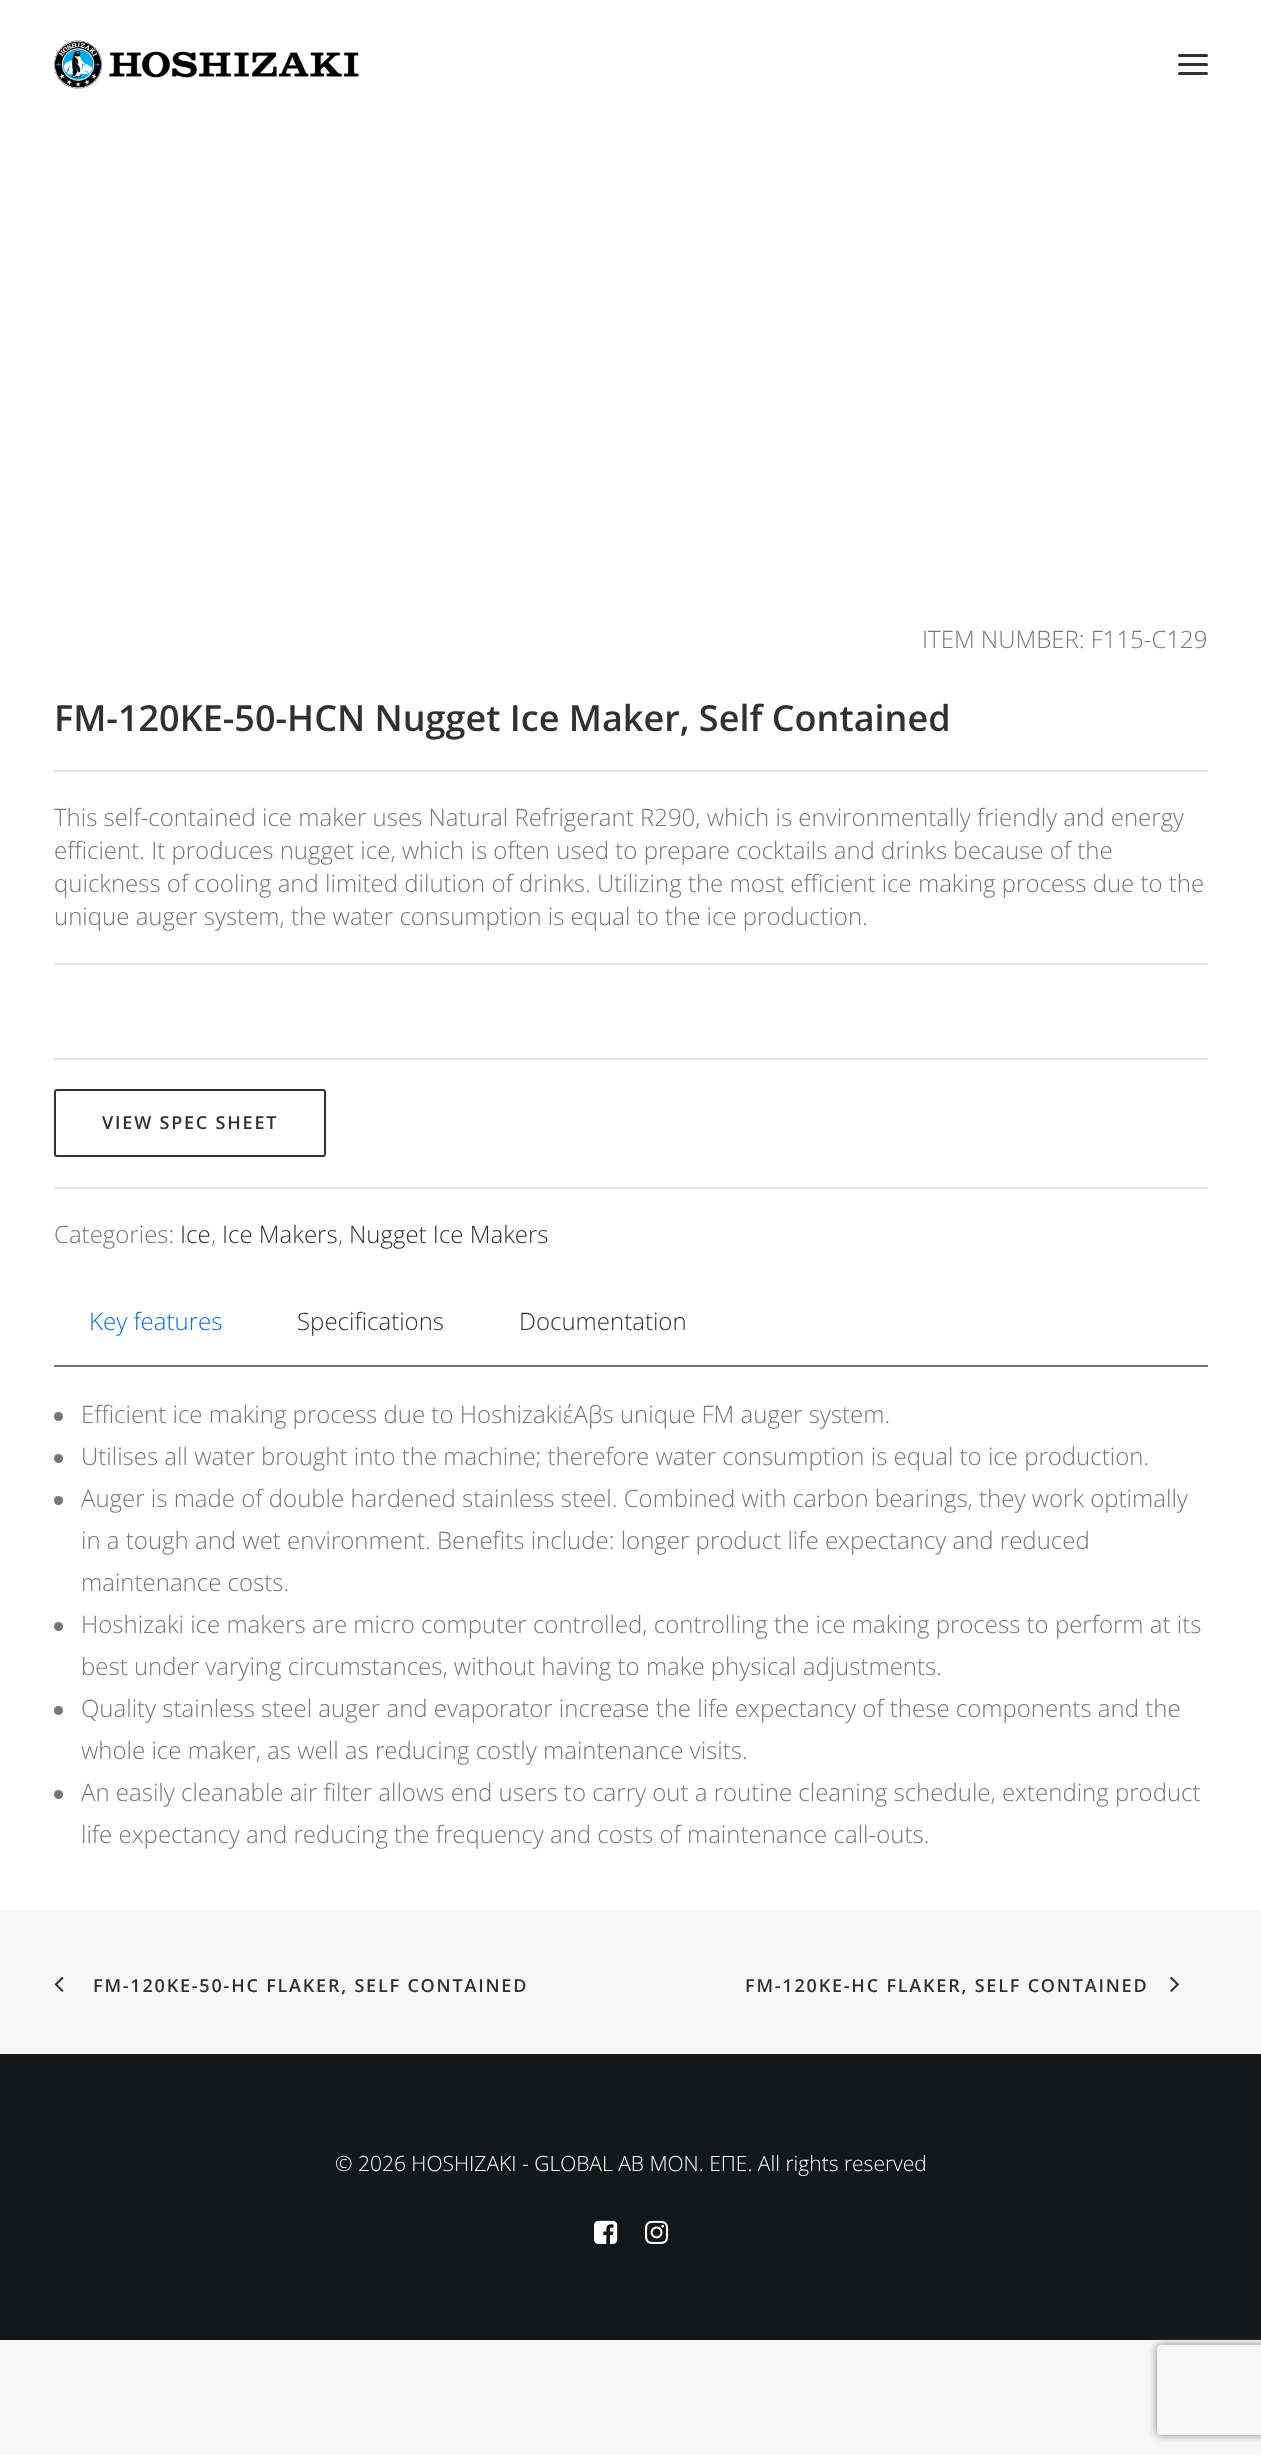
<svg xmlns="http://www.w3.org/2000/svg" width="1261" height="2455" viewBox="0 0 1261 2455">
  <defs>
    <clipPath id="clip1"><path d="M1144 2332H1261V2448H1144ZM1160 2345H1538C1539.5 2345 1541 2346.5 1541 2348V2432C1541 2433.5 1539.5 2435 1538 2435H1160C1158.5 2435 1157 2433.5 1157 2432V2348C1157 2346.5 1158.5 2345 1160 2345Z" clip-rule="evenodd"/></clipPath>
    <filter id="blur1" x="-50%" y="-200%" width="200%" height="500%"><feGaussianBlur stdDeviation="4"/></filter>
  </defs>
  <rect width="100%" height="100%" fill="#f7f7f7"/>
  <rect x="0" y="0" width="1261" height="1910" fill="#ffffff"/>
  <image x="54" y="40" width="305" height="49" href="img1.png"/>
  <rect x="1178" y="63" width="30" height="3" rx="1.5" fill="#303133"/>
  <rect x="1178" y="54" width="30" height="3" rx="1.5" fill="#303133"/>
  <rect x="1178" y="72" width="30" height="3" rx="1.5" fill="#303133"/>
  <text x="922" y="648" font-family="Open Sans" font-size="24" font-weight="300" fill="#777777">ITEM NUMBER: F115-C129</text>
  <text x="54" y="731" font-family="Open Sans" font-size="36" font-weight="600" fill="#303133">FM-120KE-50-HCN Nugget Ice Maker, Self Contained</text>
  <rect x="54" y="770" width="1154" height="2" fill="#e5e5e5"/>
  <text x="54" y="826" font-family="Open Sans" font-size="24" font-weight="300" fill="#777777">This self-contained ice maker uses Natural Refrigerant R290, which is environmentally friendly and energy</text>
  <text x="54" y="859" font-family="Open Sans" font-size="24" font-weight="300" fill="#777777">efficient. It produces nugget ice, which is often used to prepare cocktails and drinks because of the</text>
  <text x="54" y="892" font-family="Open Sans" font-size="24" font-weight="300" fill="#777777">quickness of cooling and limited dilution of drinks. Utilizing the most efficient ice making process due to the</text>
  <text x="54" y="925" font-family="Open Sans" font-size="24" font-weight="300" fill="#777777">unique auger system, the water consumption is equal to the ice production.</text>
  <rect x="54" y="963" width="1154" height="2" fill="#e5e5e5"/>
  <rect x="54" y="1058" width="1154" height="2" fill="#e5e5e5"/>
  <rect x="55" y="1090" width="270" height="66" rx="2" fill="none" stroke="#303133" stroke-width="2"/>
  <text x="102" y="1129" font-family="Open Sans" font-size="18" font-weight="600" letter-spacing="1.8" fill="#303133">VIEW SPEC SHEET</text>
  <rect x="54" y="1187" width="1154" height="2" fill="#e5e5e5"/>
  <text x="54" y="1243" font-family="Open Sans" font-size="24" font-weight="300" fill="#777777">Categories:</text>
  <text x="180" y="1243" font-family="Open Sans" font-size="24" font-weight="300" fill="#303133">Ice</text>
  <text x="211" y="1243" font-family="Open Sans" font-size="24" font-weight="300" fill="#777777">,</text>
  <text x="222" y="1243" font-family="Open Sans" font-size="24" font-weight="300" fill="#303133">Ice Makers</text>
  <text x="338" y="1243" font-family="Open Sans" font-size="24" font-weight="300" fill="#777777">,</text>
  <text x="349" y="1243" font-family="Open Sans" font-size="24" font-weight="300" fill="#303133">Nugget Ice Makers</text>
  <rect x="54" y="1365" width="1154" height="2" fill="#777777"/>
  <text x="89" y="1330" font-family="Open Sans" font-size="24" font-weight="300" fill="#006cff">Key features</text>
  <text x="297" y="1330" font-family="Open Sans" font-size="24" font-weight="300" fill="#303133">Specifications</text>
  <text x="519" y="1330" font-family="Open Sans" font-size="24" font-weight="300" fill="#303133">Documentation</text>
  <circle cx="58.5" cy="1416.5" r="4.5" fill="#777777"/>
  <text x="81" y="1423" font-family="Open Sans" font-size="24" font-weight="300" fill="#777777">Efficient ice making process due to HoshizakiέΑβs unique FM auger system.</text>
  <circle cx="58.5" cy="1458.5" r="4.5" fill="#777777"/>
  <text x="81" y="1465" font-family="Open Sans" font-size="24" font-weight="300" fill="#777777">Utilises all water brought into the machine; therefore water consumption is equal to ice production.</text>
  <circle cx="58.5" cy="1500.5" r="4.5" fill="#777777"/>
  <text x="81" y="1507" font-family="Open Sans" font-size="24" font-weight="300" fill="#777777">Auger is made of double hardened stainless steel. Combined with carbon bearings, they work optimally</text>
  <text x="81" y="1549" font-family="Open Sans" font-size="24" font-weight="300" fill="#777777">in a tough and wet environment. Benefits include: longer product life expectancy and reduced</text>
  <text x="81" y="1591" font-family="Open Sans" font-size="24" font-weight="300" fill="#777777">maintenance costs.</text>
  <circle cx="58.5" cy="1626.5" r="4.5" fill="#777777"/>
  <text x="81" y="1633" font-family="Open Sans" font-size="24" font-weight="300" fill="#777777">Hoshizaki ice makers are micro computer controlled, controlling the ice making process to perform at its</text>
  <text x="81" y="1675" font-family="Open Sans" font-size="24" font-weight="300" fill="#777777">best under varying circumstances, without having to make physical adjustments.</text>
  <circle cx="58.5" cy="1710.5" r="4.5" fill="#777777"/>
  <text x="81" y="1717" font-family="Open Sans" font-size="24" font-weight="300" fill="#777777">Quality stainless steel auger and evaporator increase the life expectancy of these components and the</text>
  <text x="81" y="1759" font-family="Open Sans" font-size="24" font-weight="300" fill="#777777">whole ice maker, as well as reducing costly maintenance visits.</text>
  <circle cx="58.5" cy="1794.5" r="4.5" fill="#777777"/>
  <text x="81" y="1801" font-family="Open Sans" font-size="24" font-weight="300" fill="#777777">An easily cleanable air filter allows end users to carry out a routine cleaning schedule, extending product</text>
  <text x="81" y="1843" font-family="Open Sans" font-size="24" font-weight="300" fill="#777777">life expectancy and reducing the frequency and costs of maintenance call-outs.</text>
  <image x="54" y="1976" width="10" height="16" href="img2.png"/>
  <text x="93" y="1992" font-family="Open Sans" font-size="18" font-weight="600" letter-spacing="1.8" fill="#303133">FM-120KE-50-HC FLAKER, SELF CONTAINED</text>
  <text x="745" y="1992" font-family="Open Sans" font-size="18" font-weight="600" letter-spacing="1.8" fill="#303133">FM-120KE-HC FLAKER, SELF CONTAINED</text>
  <image x="1170" y="1976" width="9" height="16" href="img3.png"/>
  <rect x="0" y="2054" width="1261" height="286" fill="#141618"/>
  <text x="335" y="2171" font-family="Open Sans" font-size="21" font-weight="300" fill="#ffffff">© 2026 HOSHIZAKI - GLOBAL AB MON. EΠΕ. All rights reserved</text>
  <image x="594" y="2220" width="24" height="24" href="img4.png"/>
  <image x="645" y="2220" width="24" height="24" href="img5.png"/>
  <g clip-path="url(#clip1)">
    <rect x="1157" y="2345" width="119" height="90" rx="3" fill="#808080" filter="url(#blur1)"/>
  </g>
</svg>
